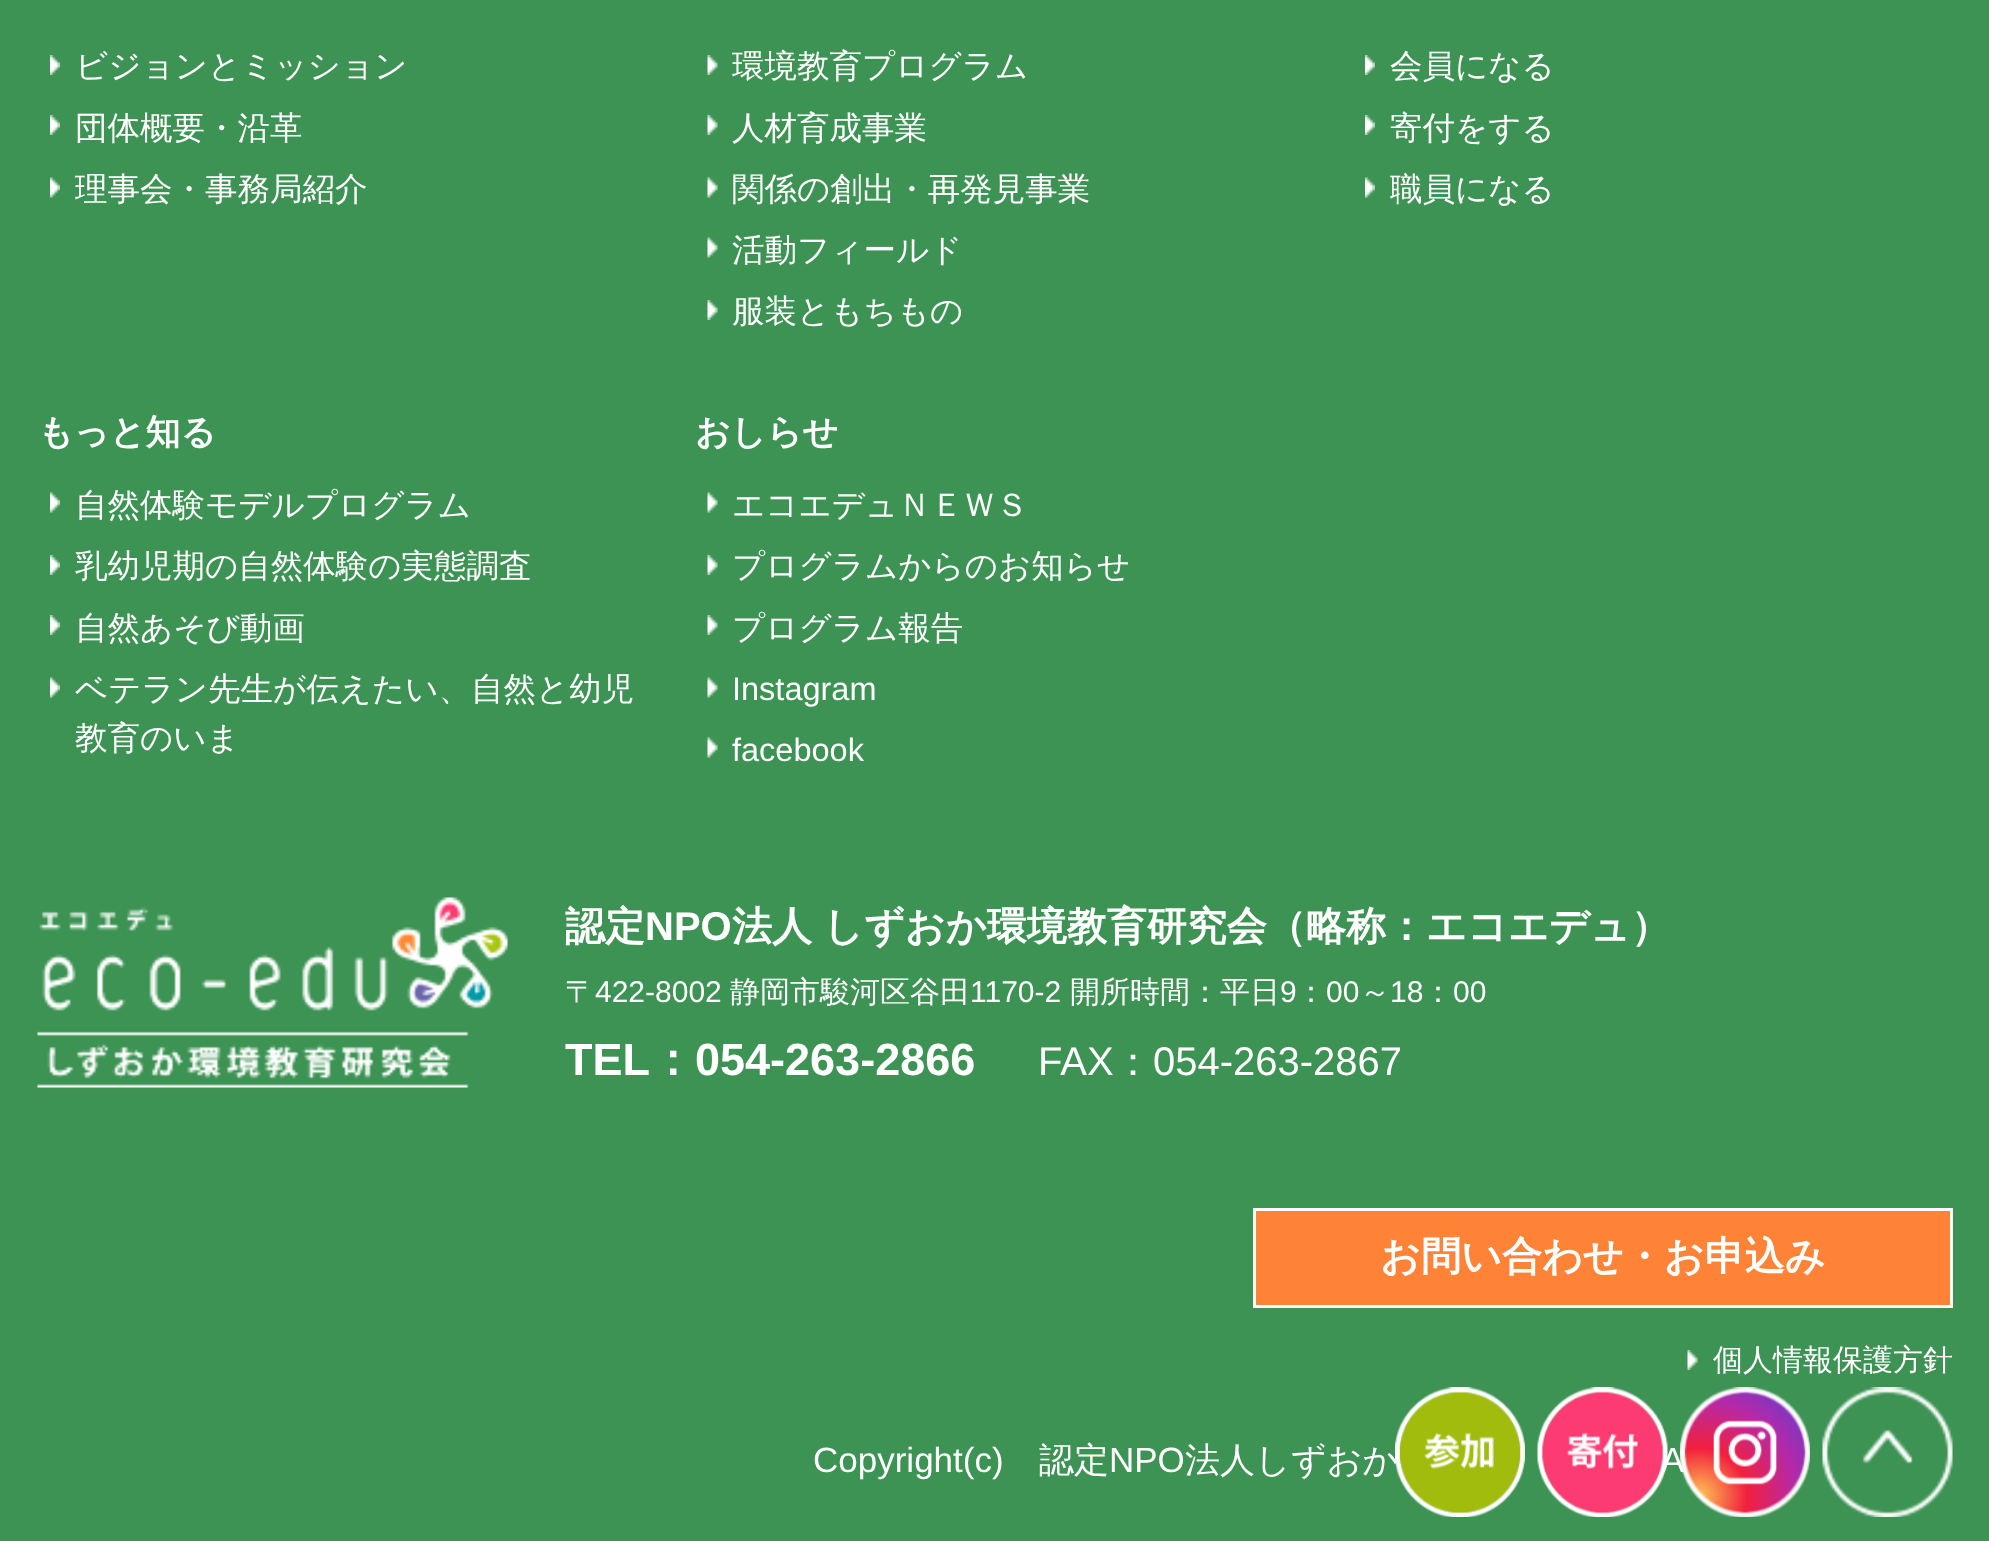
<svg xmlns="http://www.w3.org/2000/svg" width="1989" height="1541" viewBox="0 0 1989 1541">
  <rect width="100%" height="100%" fill="#3c9353"/>
  <image x="50" y="55" width="10" height="20" href="img1.png"/>
  <text x="75" y="77" font-family="WenQuanYi Zen Hei" font-size="32.5" font-weight="500" fill="#ffffff">ビジョンとミッション</text>
  <image x="50" y="115" width="10" height="20" href="img1.png"/>
  <text x="75" y="139" font-family="WenQuanYi Zen Hei" font-size="32.5" font-weight="500" fill="#ffffff">団体概要・沿革</text>
  <image x="50" y="177" width="10" height="21" href="img2.png"/>
  <text x="75" y="200" font-family="WenQuanYi Zen Hei" font-size="32.5" font-weight="500" fill="#ffffff">理事会・事務局紹介</text>
  <image x="707" y="55" width="11" height="20" href="img3.png"/>
  <text x="732" y="77" font-family="WenQuanYi Zen Hei" font-size="32.5" font-weight="500" fill="#ffffff">環境教育プログラム</text>
  <image x="707" y="115" width="11" height="20" href="img3.png"/>
  <text x="732" y="139" font-family="WenQuanYi Zen Hei" font-size="32.5" font-weight="500" fill="#ffffff">人材育成事業</text>
  <image x="707" y="177" width="11" height="21" href="img4.png"/>
  <text x="732" y="200" font-family="WenQuanYi Zen Hei" font-size="32.5" font-weight="500" fill="#ffffff">関係の創出・再発見事業</text>
  <image x="707" y="237" width="11" height="21" href="img4.png"/>
  <text x="732" y="261" font-family="WenQuanYi Zen Hei" font-size="32.5" font-weight="500" fill="#ffffff">活動フィールド</text>
  <image x="707" y="300" width="11" height="20" href="img3.png"/>
  <text x="732" y="322" font-family="WenQuanYi Zen Hei" font-size="32.5" font-weight="500" fill="#ffffff">服装ともちもの</text>
  <image x="1365" y="55" width="10" height="20" href="img1.png"/>
  <text x="1390" y="77" font-family="WenQuanYi Zen Hei" font-size="32.5" font-weight="500" fill="#ffffff">会員になる</text>
  <image x="1365" y="115" width="10" height="20" href="img1.png"/>
  <text x="1390" y="139" font-family="WenQuanYi Zen Hei" font-size="32.5" font-weight="500" fill="#ffffff">寄付をする</text>
  <image x="1365" y="177" width="10" height="21" href="img2.png"/>
  <text x="1390" y="200" font-family="WenQuanYi Zen Hei" font-size="32.5" font-weight="500" fill="#ffffff">職員になる</text>
  <text x="38" y="444" font-family="WenQuanYi Zen Hei" font-size="35" font-weight="bold" fill="#ffffff">もっと知る</text>
  <image x="50" y="492" width="10" height="21" href="img2.png"/>
  <text x="75" y="516" font-family="WenQuanYi Zen Hei" font-size="32.5" font-weight="500" fill="#ffffff">自然体験モデルプログラム</text>
  <image x="50" y="555" width="10" height="20" href="img1.png"/>
  <text x="75" y="577" font-family="WenQuanYi Zen Hei" font-size="32.5" font-weight="500" fill="#ffffff">乳幼児期の自然体験の実態調査</text>
  <image x="50" y="615" width="10" height="20" href="img1.png"/>
  <text x="75" y="639" font-family="WenQuanYi Zen Hei" font-size="32.5" font-weight="500" fill="#ffffff">自然あそび動画</text>
  <image x="50" y="677" width="10" height="21" href="img2.png"/>
  <text x="75" y="700" font-family="WenQuanYi Zen Hei" font-size="32.5" font-weight="500" fill="#ffffff">ベテラン先生が伝えたい、自然と幼児</text>
  <text x="75" y="749" font-family="WenQuanYi Zen Hei" font-size="32.5" font-weight="500" fill="#ffffff">教育のいま</text>
  <text x="695" y="444" font-family="WenQuanYi Zen Hei" font-size="35" font-weight="bold" fill="#ffffff">おしらせ</text>
  <image x="707" y="492" width="11" height="21" href="img4.png"/>
  <text x="732" y="516" font-family="WenQuanYi Zen Hei" font-size="32.5" font-weight="500" fill="#ffffff">エコエデュＮＥＷＳ</text>
  <image x="707" y="555" width="11" height="20" href="img3.png"/>
  <text x="732" y="577" font-family="WenQuanYi Zen Hei" font-size="32.5" font-weight="500" fill="#ffffff">プログラムからのお知らせ</text>
  <image x="707" y="615" width="11" height="20" href="img3.png"/>
  <text x="732" y="639" font-family="WenQuanYi Zen Hei" font-size="32.5" font-weight="500" fill="#ffffff">プログラム報告</text>
  <image x="707" y="677" width="11" height="21" href="img4.png"/>
  <text x="732" y="700" font-family="Liberation Sans" font-size="32.5" fill="#ffffff">Instagram</text>
  <image x="707" y="737" width="11" height="21" href="img4.png"/>
  <text x="732" y="761" font-family="Liberation Sans" font-size="32.5" fill="#ffffff">facebook</text>
  <image x="37" y="897" width="471" height="191" href="img5.png"/>
  <text x="565" y="940" font-family="WenQuanYi Zen Hei" font-size="40" font-weight="bold" fill="#ffffff">認定</text>
  <text x="645" y="940" font-family="Liberation Sans" font-size="40" font-weight="bold" fill="#ffffff">NPO</text>
  <text x="732" y="940" word-spacing="-1" font-family="WenQuanYi Zen Hei" font-size="40" font-weight="bold" fill="#ffffff">法人 しずおか環境教育研究会</text>
  <text x="1266" y="940" font-family="WenQuanYi Zen Hei" font-size="40" font-weight="bold" fill="#ffffff">（略称：エコエデュ）</text>
  <text x="565" y="1002" font-family="WenQuanYi Zen Hei" font-size="30" font-weight="500" fill="#ffffff">〒</text>
  <text x="595" y="1002" font-family="Liberation Sans" font-size="30" fill="#ffffff">422-8002</text>
  <text x="730" y="1002" font-family="WenQuanYi Zen Hei" font-size="30" font-weight="500" fill="#ffffff">静岡市駿河区谷田</text>
  <text x="970" y="1002" font-family="Liberation Sans" font-size="30" fill="#ffffff">1170-2</text>
  <text x="1070" y="1002" font-family="WenQuanYi Zen Hei" font-size="30" font-weight="500" fill="#ffffff">開所時間：平日</text>
  <text x="1280" y="1002" font-family="Liberation Sans" font-size="30" fill="#ffffff">9</text>
  <text x="1296" y="1002" font-family="WenQuanYi Zen Hei" font-size="30" font-weight="500" fill="#ffffff">：</text>
  <text x="1326" y="1002" font-family="Liberation Sans" font-size="30" fill="#ffffff">00</text>
  <text x="1360" y="1002" font-family="WenQuanYi Zen Hei" font-size="30" font-weight="500" fill="#ffffff">～</text>
  <text x="1390" y="1002" font-family="Liberation Sans" font-size="30" fill="#ffffff">18</text>
  <text x="1423" y="1002" font-family="WenQuanYi Zen Hei" font-size="30" font-weight="500" fill="#ffffff">：</text>
  <text x="1453" y="1002" font-family="Liberation Sans" font-size="30" fill="#ffffff">00</text>
  <text x="565" y="1075" font-family="Liberation Sans" font-size="45" font-weight="bold" fill="#ffffff">TEL</text>
  <text x="650" y="1075" font-family="WenQuanYi Zen Hei" font-size="45" font-weight="bold" fill="#ffffff">：</text>
  <text x="695" y="1075" font-family="Liberation Sans" font-size="45" font-weight="bold" fill="#ffffff">054-263-2866</text>
  <text x="1038" y="1075" font-family="Liberation Sans" font-size="40" fill="#ffffff">FAX</text>
  <text x="1113" y="1075" font-family="WenQuanYi Zen Hei" font-size="40" font-weight="500" fill="#ffffff">：</text>
  <text x="1153" y="1075" font-family="Liberation Sans" font-size="40" fill="#ffffff">054-263-2867</text>
  <rect x="1254.5" y="1209.5" width="697" height="97" fill="#fe8336" stroke="#ffffff" stroke-width="3"/>
  <text x="1380" y="1270" font-family="WenQuanYi Zen Hei" font-size="40" font-weight="bold" fill="#ffffff">お問い合わせ・お申込み</text>
  <image x="1687" y="1350" width="11" height="20" href="img3.png"/>
  <text x="1713" y="1370" font-family="WenQuanYi Zen Hei" font-size="30" font-weight="500" fill="#ffffff">個人情報保護方針</text>
  <text x="813" y="1472" font-family="Liberation Sans" font-size="35" fill="#ffffff">Copyright(c)</text>
  <text x="1039" y="1472" font-family="WenQuanYi Zen Hei" font-size="35" font-weight="500" fill="#ffffff">認定</text>
  <text x="1109" y="1472" font-family="Liberation Sans" font-size="35" fill="#ffffff">NPO</text>
  <text x="1185" y="1472" font-family="WenQuanYi Zen Hei" font-size="35" font-weight="500" fill="#ffffff">法人しずおか</text>
  <text x="1661" y="1472" word-spacing="1" font-family="Liberation Sans" font-size="35" fill="#ffffff">A</text>
  <image x="1395" y="1387" width="130" height="130" href="img6.png"/>
  <image x="1537" y="1387" width="131" height="130" href="img7.png"/>
  <image x="1680" y="1387" width="130" height="130" href="img8.png"/>
  <image x="1822" y="1387" width="131" height="130" href="img9.png"/>
</svg>
